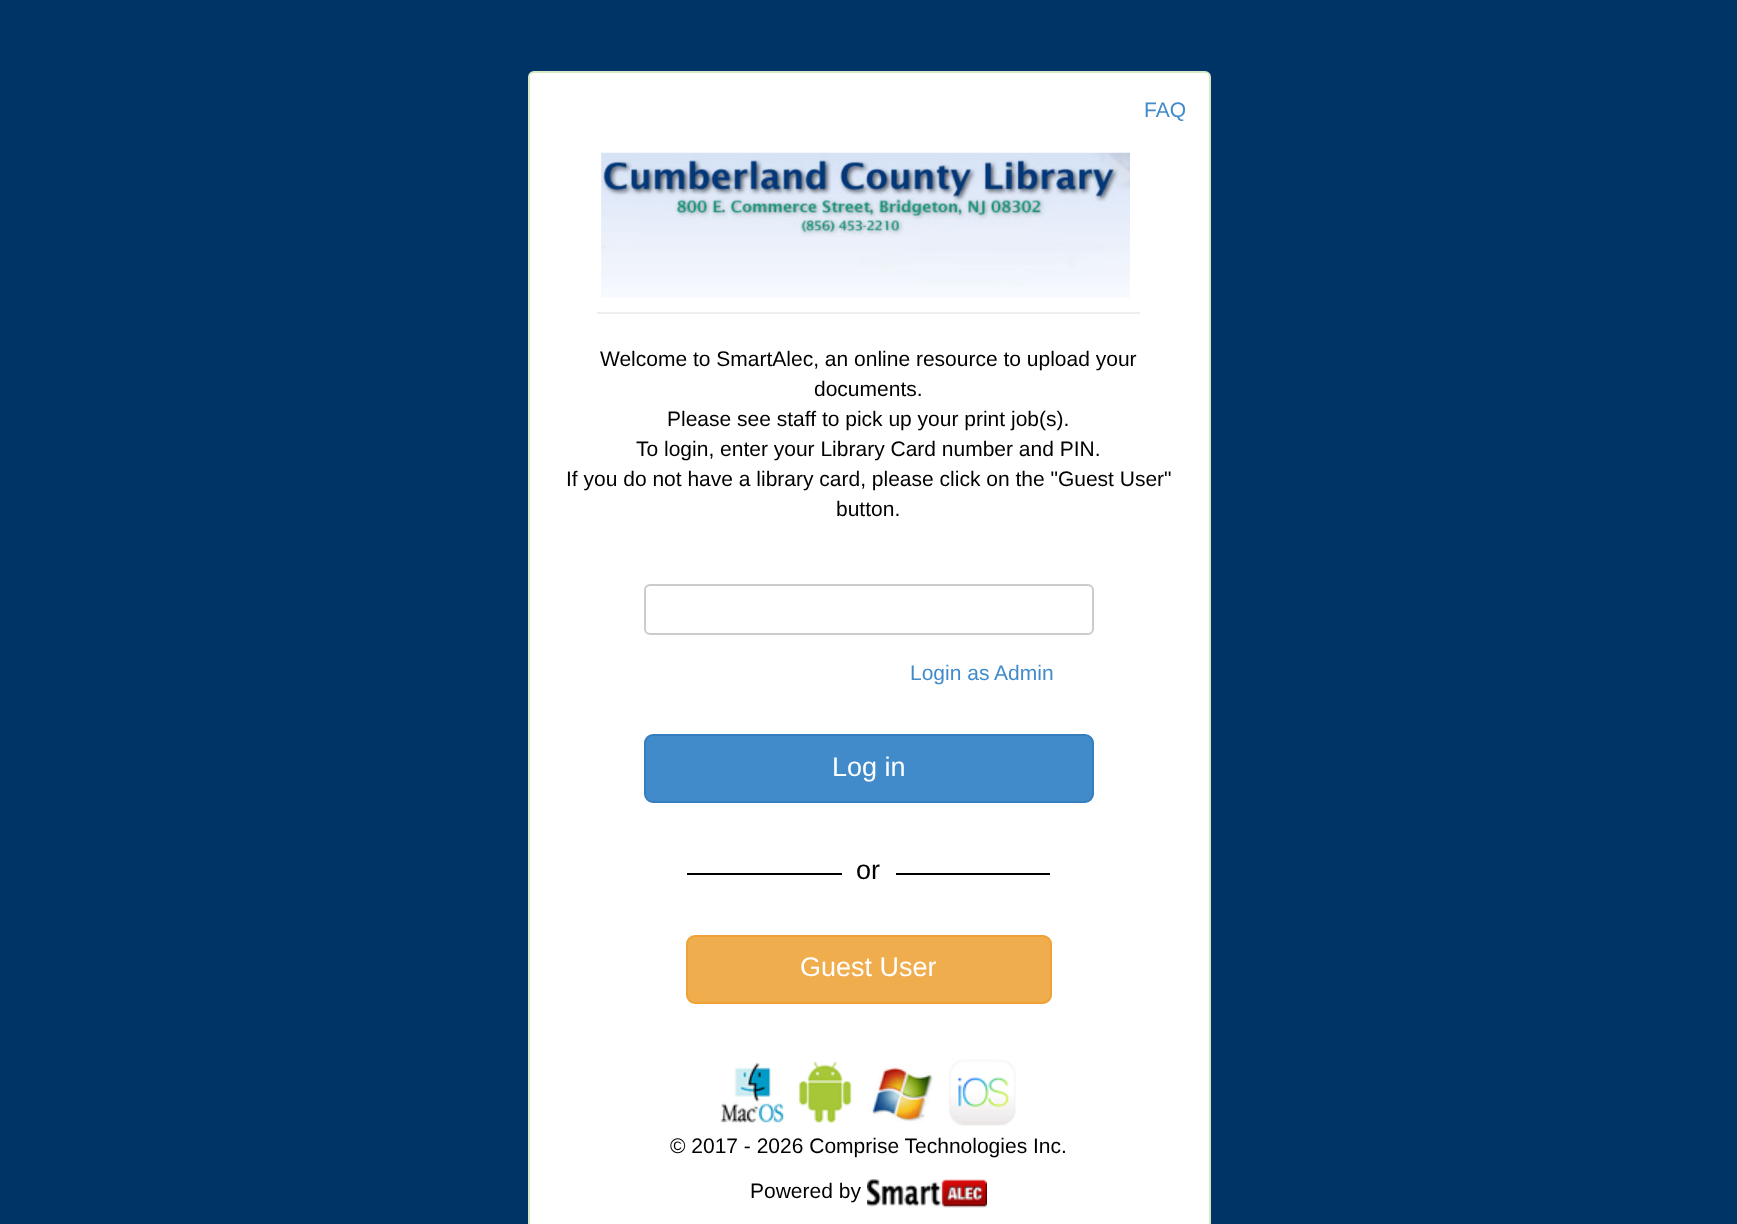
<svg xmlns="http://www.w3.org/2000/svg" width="1737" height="1224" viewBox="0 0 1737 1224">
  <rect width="100%" height="100%" fill="#003366"/>
  <rect x="529" y="72" width="681" height="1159" rx="5" fill="#ffffff" stroke="#d6e9c6" stroke-width="2"/>
  <text x="1144" y="117" font-family="Liberation Sans" font-size="21" fill="#428bca">FAQ</text>
  <rect x="597" y="312" width="543" height="2" fill="#eeeeee"/>
  <image x="601" y="152" width="529" height="146" href="img1.png"/>
  <text x="600" y="366" font-family="Liberation Sans" font-size="21" fill="#000000">Welcome to SmartAlec, an online resource to upload your</text>
  <text x="814" y="396" font-family="Liberation Sans" font-size="21" fill="#000000">documents.</text>
  <text x="667" y="426" font-family="Liberation Sans" font-size="21" fill="#000000">Please see staff to pick up your print job(s).</text>
  <text x="636" y="456" font-family="Liberation Sans" font-size="21" fill="#000000">To login, enter your Library Card number and PIN.</text>
  <text x="566" y="486" font-family="Liberation Sans" font-size="21" fill="#000000">If you do not have a library card, please click on the "Guest User"</text>
  <text x="836" y="516" font-family="Liberation Sans" font-size="21" fill="#000000">button.</text>
  <path d="M650 586H1088C1090 586 1092 589 1092 591C1092 588 1090 585 1087 585H650C647 585 645 588 645 591C645 589 647 586 650 586Z" fill="#ececec"/>
  <rect x="645" y="585" width="448" height="49" rx="5" fill="none" stroke="#cccccc" stroke-width="2"/>
  <text x="910" y="680" font-family="Liberation Sans" font-size="21" fill="#428bca">Login as Admin</text>
  <rect x="645" y="735" width="448" height="67" rx="8" fill="#428bca" stroke="#357ebd" stroke-width="2"/>
  <text x="832" y="776" font-family="Liberation Sans" font-size="27" fill="#ffffff">Log in</text>
  <rect x="687" y="873" width="363" height="2" fill="#000000"/>
  <rect x="842" y="873" width="54" height="2" fill="#ffffff"/>
  <text x="856" y="879" font-family="Liberation Sans" font-size="27" fill="#000000">or</text>
  <rect x="687" y="936" width="364" height="67" rx="8" fill="#f0ad4e" stroke="#eea236" stroke-width="2"/>
  <text x="800" y="976" font-family="Liberation Sans" font-size="27" fill="#ffffff">Guest User</text>
  <image x="720" y="1059" width="296" height="67" href="img2.png"/>
  <text x="670" y="1153" font-family="Liberation Sans" font-size="21" fill="#000000">© 2017 - 2026 Comprise Technologies Inc.</text>
  <text x="750" y="1198" font-family="Liberation Sans" font-size="21" fill="#000000">Powered by</text>
  <image x="867" y="1179" width="120" height="29" href="img3.png"/>
</svg>
